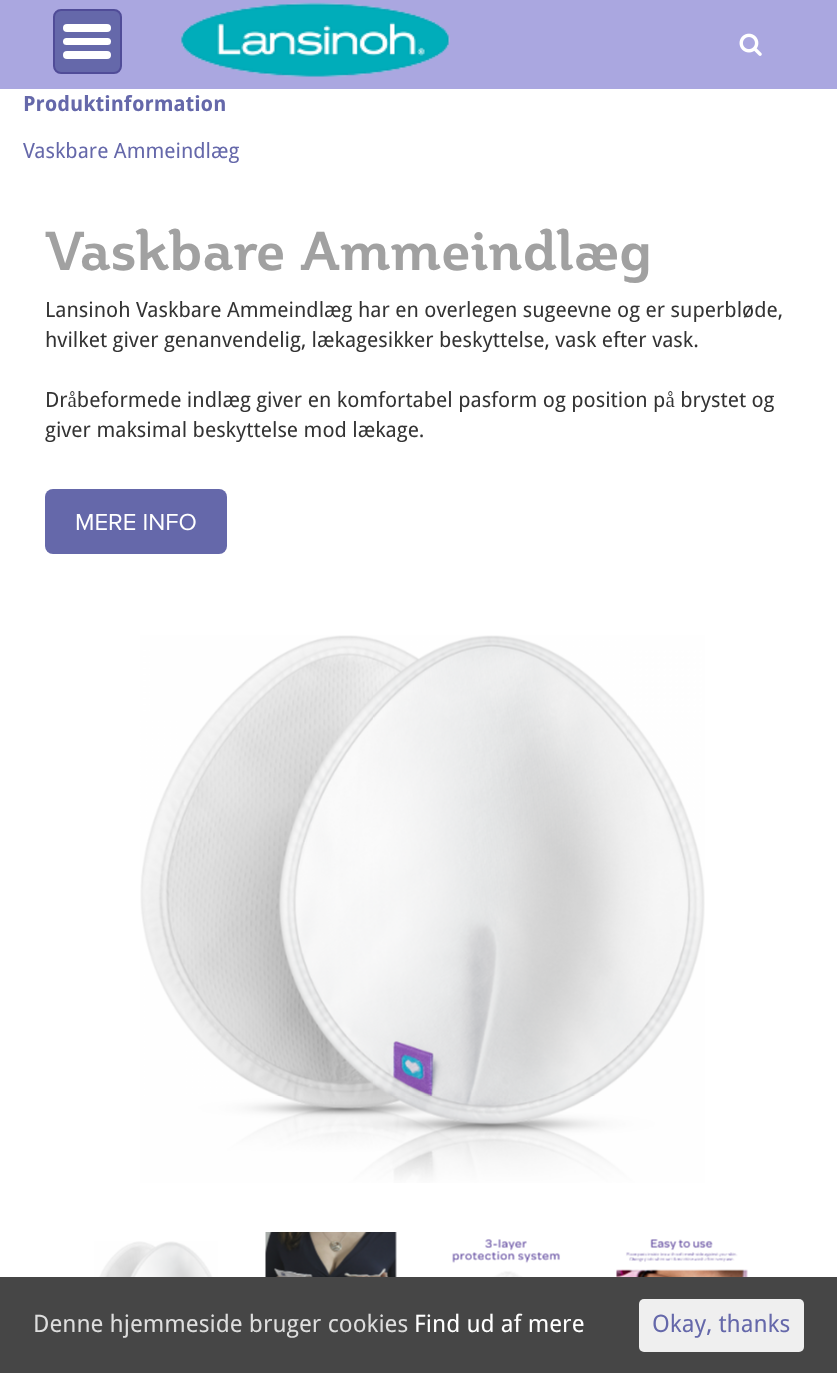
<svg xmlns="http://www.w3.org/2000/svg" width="837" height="1373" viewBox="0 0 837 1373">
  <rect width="100%" height="100%" fill="#ffffff"/>
  <rect x="0" y="0" width="837" height="89" fill="#aaa7e0"/>
  <rect x="54" y="10" width="67" height="63" rx="7" fill="#6568aa" stroke="#504c98" stroke-width="2"/>
  <rect x="63" y="38" width="48" height="7" rx="3.5" fill="#ffffff"/>
  <rect x="63" y="24" width="48" height="8" rx="4" fill="#ffffff"/>
  <rect x="63" y="51" width="48" height="8" rx="4" fill="#ffffff"/>
  <image x="181" y="2" width="269" height="75" href="img1.png"/>
  <image x="739" y="33" width="23" height="23" href="img2.png"/>
  <text x="23" y="111" font-family="Droid Sans" font-size="21" font-weight="bold" fill="#6568aa">Produktinformation</text>
  <text x="23" y="158" font-family="Droid Sans" font-size="21" fill="#6568aa">Vaskbare Ammeindlæg</text>
  <text x="45" y="270" font-family="'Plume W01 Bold'" font-size="54" font-weight="bold" fill="#a1a1a1">Vaskbare Ammeindlæg</text>
  <text x="45" y="317" font-family="Droid Sans" font-size="21" fill="#333333">Lansinoh Vaskbare Ammeindlæg har en overlegen sugeevne og er superbløde,</text>
  <text x="45" y="347" font-family="Droid Sans" font-size="21" fill="#333333">hvilket giver genanvendelig, lækagesikker beskyttelse, vask efter vask.</text>
  <text x="45" y="407" font-family="Droid Sans" font-size="21" fill="#333333">Dråbeformede indlæg giver en komfortabel pasform og position på brystet og</text>
  <text x="45" y="437" font-family="Droid Sans" font-size="21" fill="#333333">giver maksimal beskyttelse mod lækage.</text>
  <rect x="45" y="489" width="182" height="65" rx="8" fill="#6568aa"/>
  <text x="75" y="530" font-family="'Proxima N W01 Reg'" font-size="24" fill="#ffffff">MERE INFO</text>
  <image x="140" y="635" width="565" height="548" href="img3.png"/>
  <image x="94" y="1241" width="124" height="36" href="img4.png"/>
  <image x="265" y="1232" width="132" height="45" href="img5.png"/>
  <image x="447" y="1239" width="119" height="38" href="img6.png"/>
  <image x="616" y="1239" width="132" height="38" href="img7.png"/>
  <rect x="0" y="1277" width="837" height="96" fill="#464646"/>
  <text x="33" y="1332" font-family="Droid Sans" font-size="24" fill="#dddddd">Denne hjemmeside bruger cookies</text>
  <text x="414" y="1332" font-family="Droid Sans" font-size="24" fill="#ffffff">Find ud af mere</text>
  <rect x="639" y="1299" width="165" height="53" rx="5" fill="#efefef"/>
  <text x="652" y="1332" font-family="Droid Sans" font-size="24" fill="#6568aa">Okay, thanks</text>
</svg>
